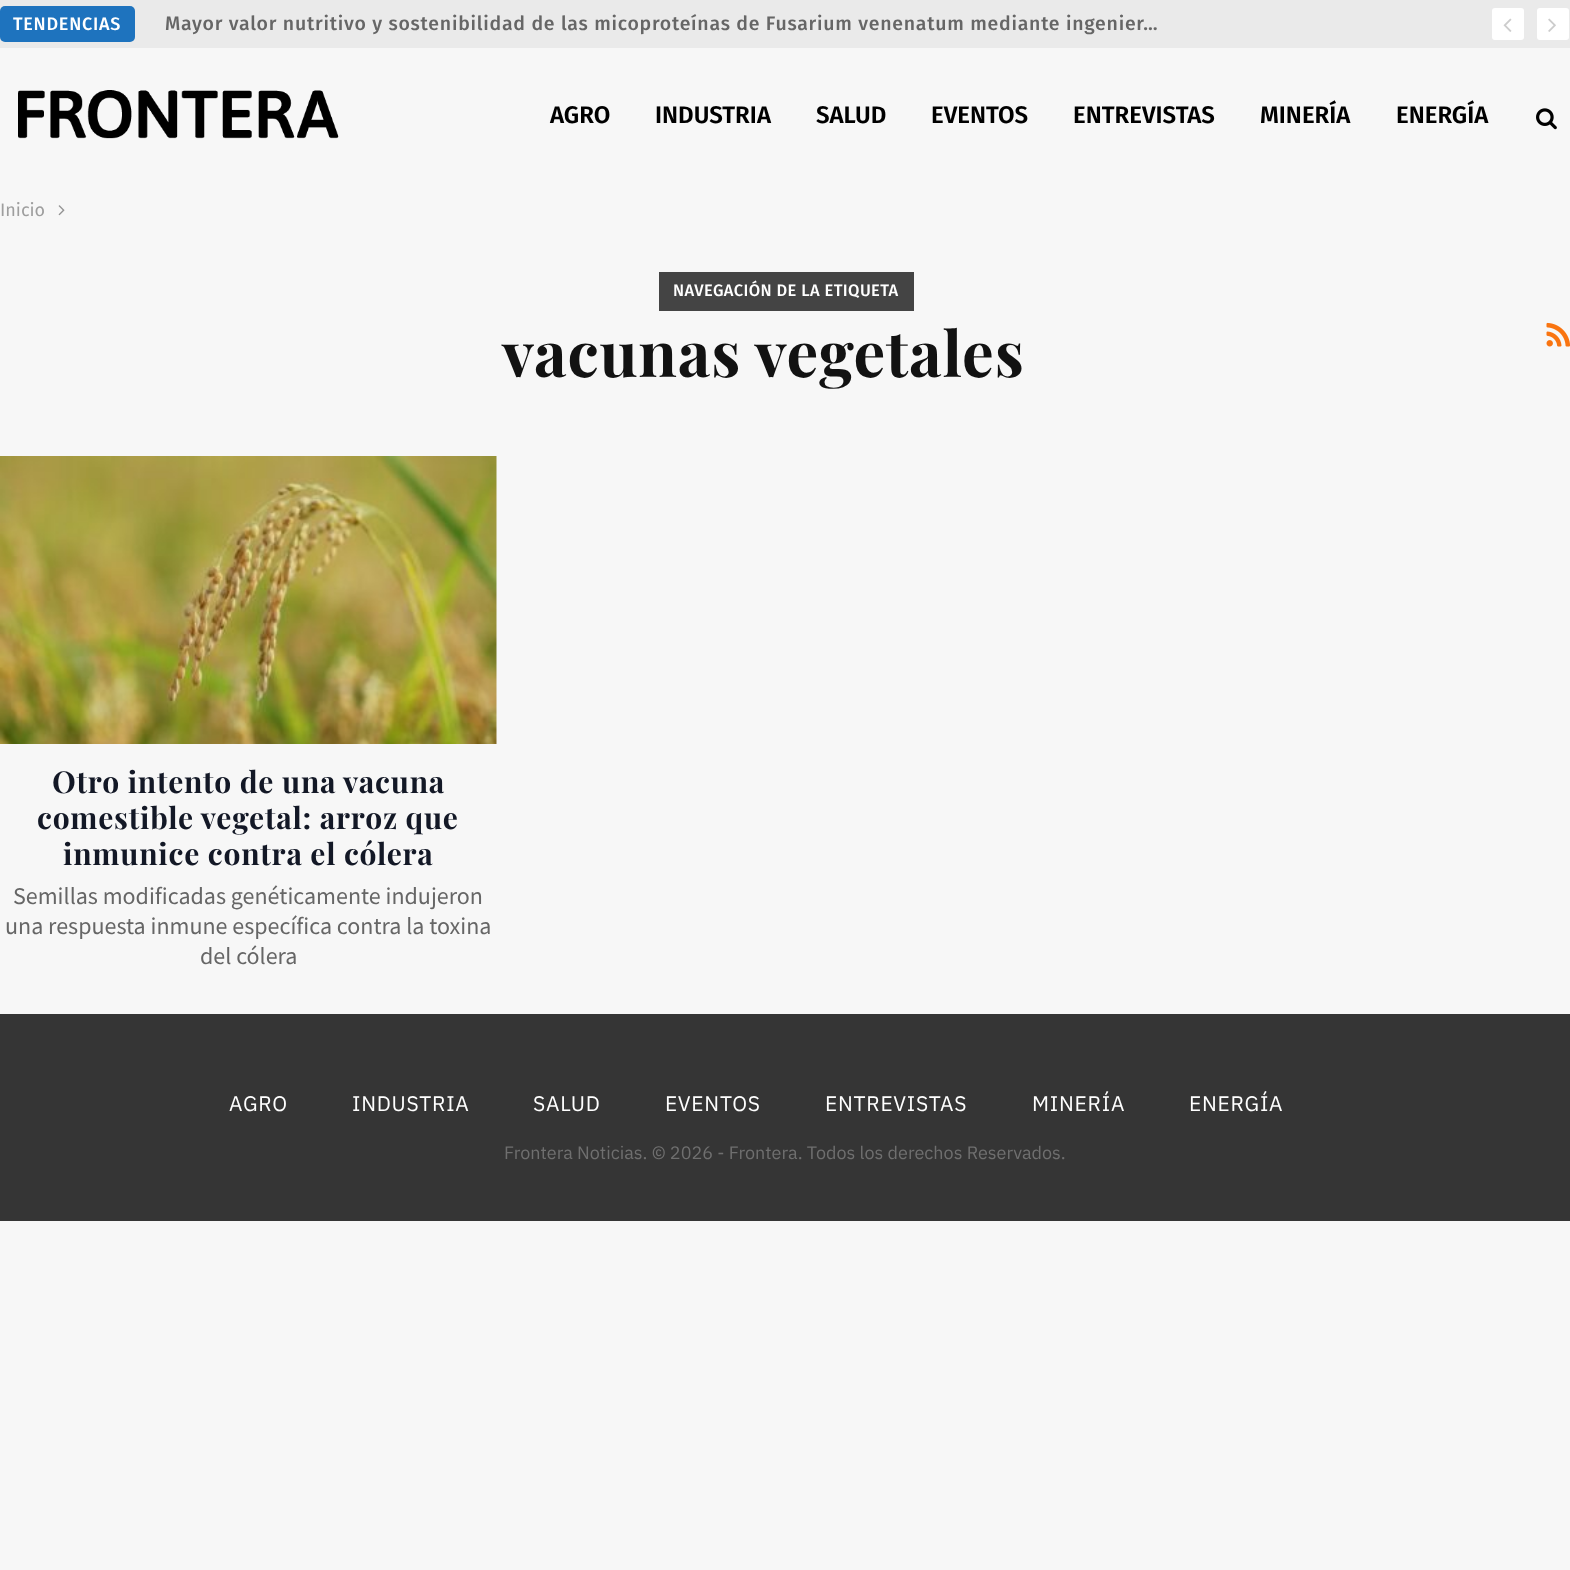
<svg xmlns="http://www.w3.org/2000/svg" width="1570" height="1570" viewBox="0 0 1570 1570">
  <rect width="100%" height="100%" fill="#f7f7f7"/>
  <rect x="0" y="0" width="1570" height="48" fill="#eaeaea"/>
  <rect x="0" y="6" width="135" height="36" rx="5" fill="#1e73be"/>
  <text x="13" y="30" font-family="Fira Sans" font-size="18" font-weight="500" letter-spacing="0.75" fill="#ffffff">TENDENCIAS</text>
  <text x="165" y="30" font-family="Fira Sans" font-size="19.5" font-weight="500" letter-spacing="0.75" fill="#666666">Mayor valor nutritivo y sostenibilidad de las micoproteínas de Fusarium venenatum mediante ingenier…</text>
  <rect x="1491" y="7" width="34" height="34" rx="4" fill="#ffffff" stroke="#eaeaea" stroke-width="2"/>
  <image x="1503" y="18" width="9" height="14" href="img1.png"/>
  <rect x="1536" y="7" width="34" height="34" rx="4" fill="#ffffff" stroke="#eaeaea" stroke-width="2"/>
  <image x="1548" y="18" width="8" height="14" href="img2.png"/>
  <image x="18" y="90" width="321" height="49" href="img3.png"/>
  <text x="550" y="123" font-family="Fira Sans" font-size="24" font-weight="600" fill="#000000">AGRO</text>
  <text x="655" y="123" font-family="Fira Sans" font-size="24" font-weight="600" fill="#000000">INDUSTRIA</text>
  <text x="816" y="123" font-family="Fira Sans" font-size="24" font-weight="600" fill="#000000">SALUD</text>
  <text x="931" y="123" font-family="Fira Sans" font-size="24" font-weight="600" fill="#000000">EVENTOS</text>
  <text x="1073" y="123" font-family="Fira Sans" font-size="24" font-weight="600" fill="#000000">ENTREVISTAS</text>
  <text x="1260" y="123" font-family="Fira Sans" font-size="24" font-weight="600" fill="#000000">MINERÍA</text>
  <text x="1396" y="123" font-family="Fira Sans" font-size="24" font-weight="600" fill="#000000">ENERGÍA</text>
  <image x="1536" y="108" width="21" height="22" href="img4.png"/>
  <text x="0" y="216" font-family="Fira Sans" font-size="18" fill="#9e9e9e">Inicio</text>
  <image x="58" y="205" width="7" height="11" href="img5.png"/>
  <rect x="659" y="272" width="255" height="39" fill="#444444"/>
  <text x="673" y="296" font-family="Fira Sans" font-size="16.5" font-weight="500" letter-spacing="0.4" fill="#ffffff">NAVEGACIÓN DE LA ETIQUETA</text>
  <text x="502" y="377" font-family="Playfair Display" font-size="63" font-weight="bold" letter-spacing="0.75" fill="#121212">vacunas vegetales</text>
  <image x="1546" y="322" width="24" height="25" href="img6.png"/>
  <image x="0" y="456" width="497" height="288" href="img7.png"/>
  <text x="52" y="793" font-family="Playfair Display" font-size="30" font-weight="bold" letter-spacing="0.75" fill="#131826">Otro intento de una vacuna</text>
  <text x="37" y="829" font-family="Playfair Display" font-size="30" font-weight="bold" letter-spacing="0.75" fill="#131826">comestible vegetal: arroz que</text>
  <text x="63" y="865" font-family="Playfair Display" font-size="30" font-weight="bold" letter-spacing="0.75" fill="#131826">inmunice contra el cólera</text>
  <text x="13" y="904" font-family="Source Sans Pro" font-size="24" fill="#666666">Semillas modificadas genéticamente indujeron</text>
  <text x="5" y="934" font-family="Source Sans Pro" font-size="24" fill="#666666">una respuesta inmune específica contra la toxina</text>
  <text x="200" y="964" font-family="Source Sans Pro" font-size="24" fill="#666666">del cólera</text>
  <rect x="0" y="1014" width="1570" height="207" fill="#353535"/>
  <text x="229" y="1111" font-family="IBM Plex Sans" font-size="21" letter-spacing="0.75" fill="#ffffff">AGRO</text>
  <text x="352" y="1111" font-family="IBM Plex Sans" font-size="21" letter-spacing="0.75" fill="#ffffff">INDUSTRIA</text>
  <text x="533" y="1111" font-family="IBM Plex Sans" font-size="21" letter-spacing="0.75" fill="#ffffff">SALUD</text>
  <text x="665" y="1111" font-family="IBM Plex Sans" font-size="21" letter-spacing="0.75" fill="#ffffff">EVENTOS</text>
  <text x="825" y="1111" font-family="IBM Plex Sans" font-size="21" letter-spacing="0.75" fill="#ffffff">ENTREVISTAS</text>
  <text x="1032" y="1111" font-family="IBM Plex Sans" font-size="21" letter-spacing="0.75" fill="#ffffff">MINERÍA</text>
  <text x="1189" y="1111" font-family="IBM Plex Sans" font-size="21" letter-spacing="0.75" fill="#ffffff">ENERGÍA</text>
  <text x="504" y="1159" font-family="IBM Plex Sans" font-size="18" fill="#6f6f6f">Frontera Noticias. © 2026 - Frontera. Todos los derechos Reservados.</text>
</svg>
